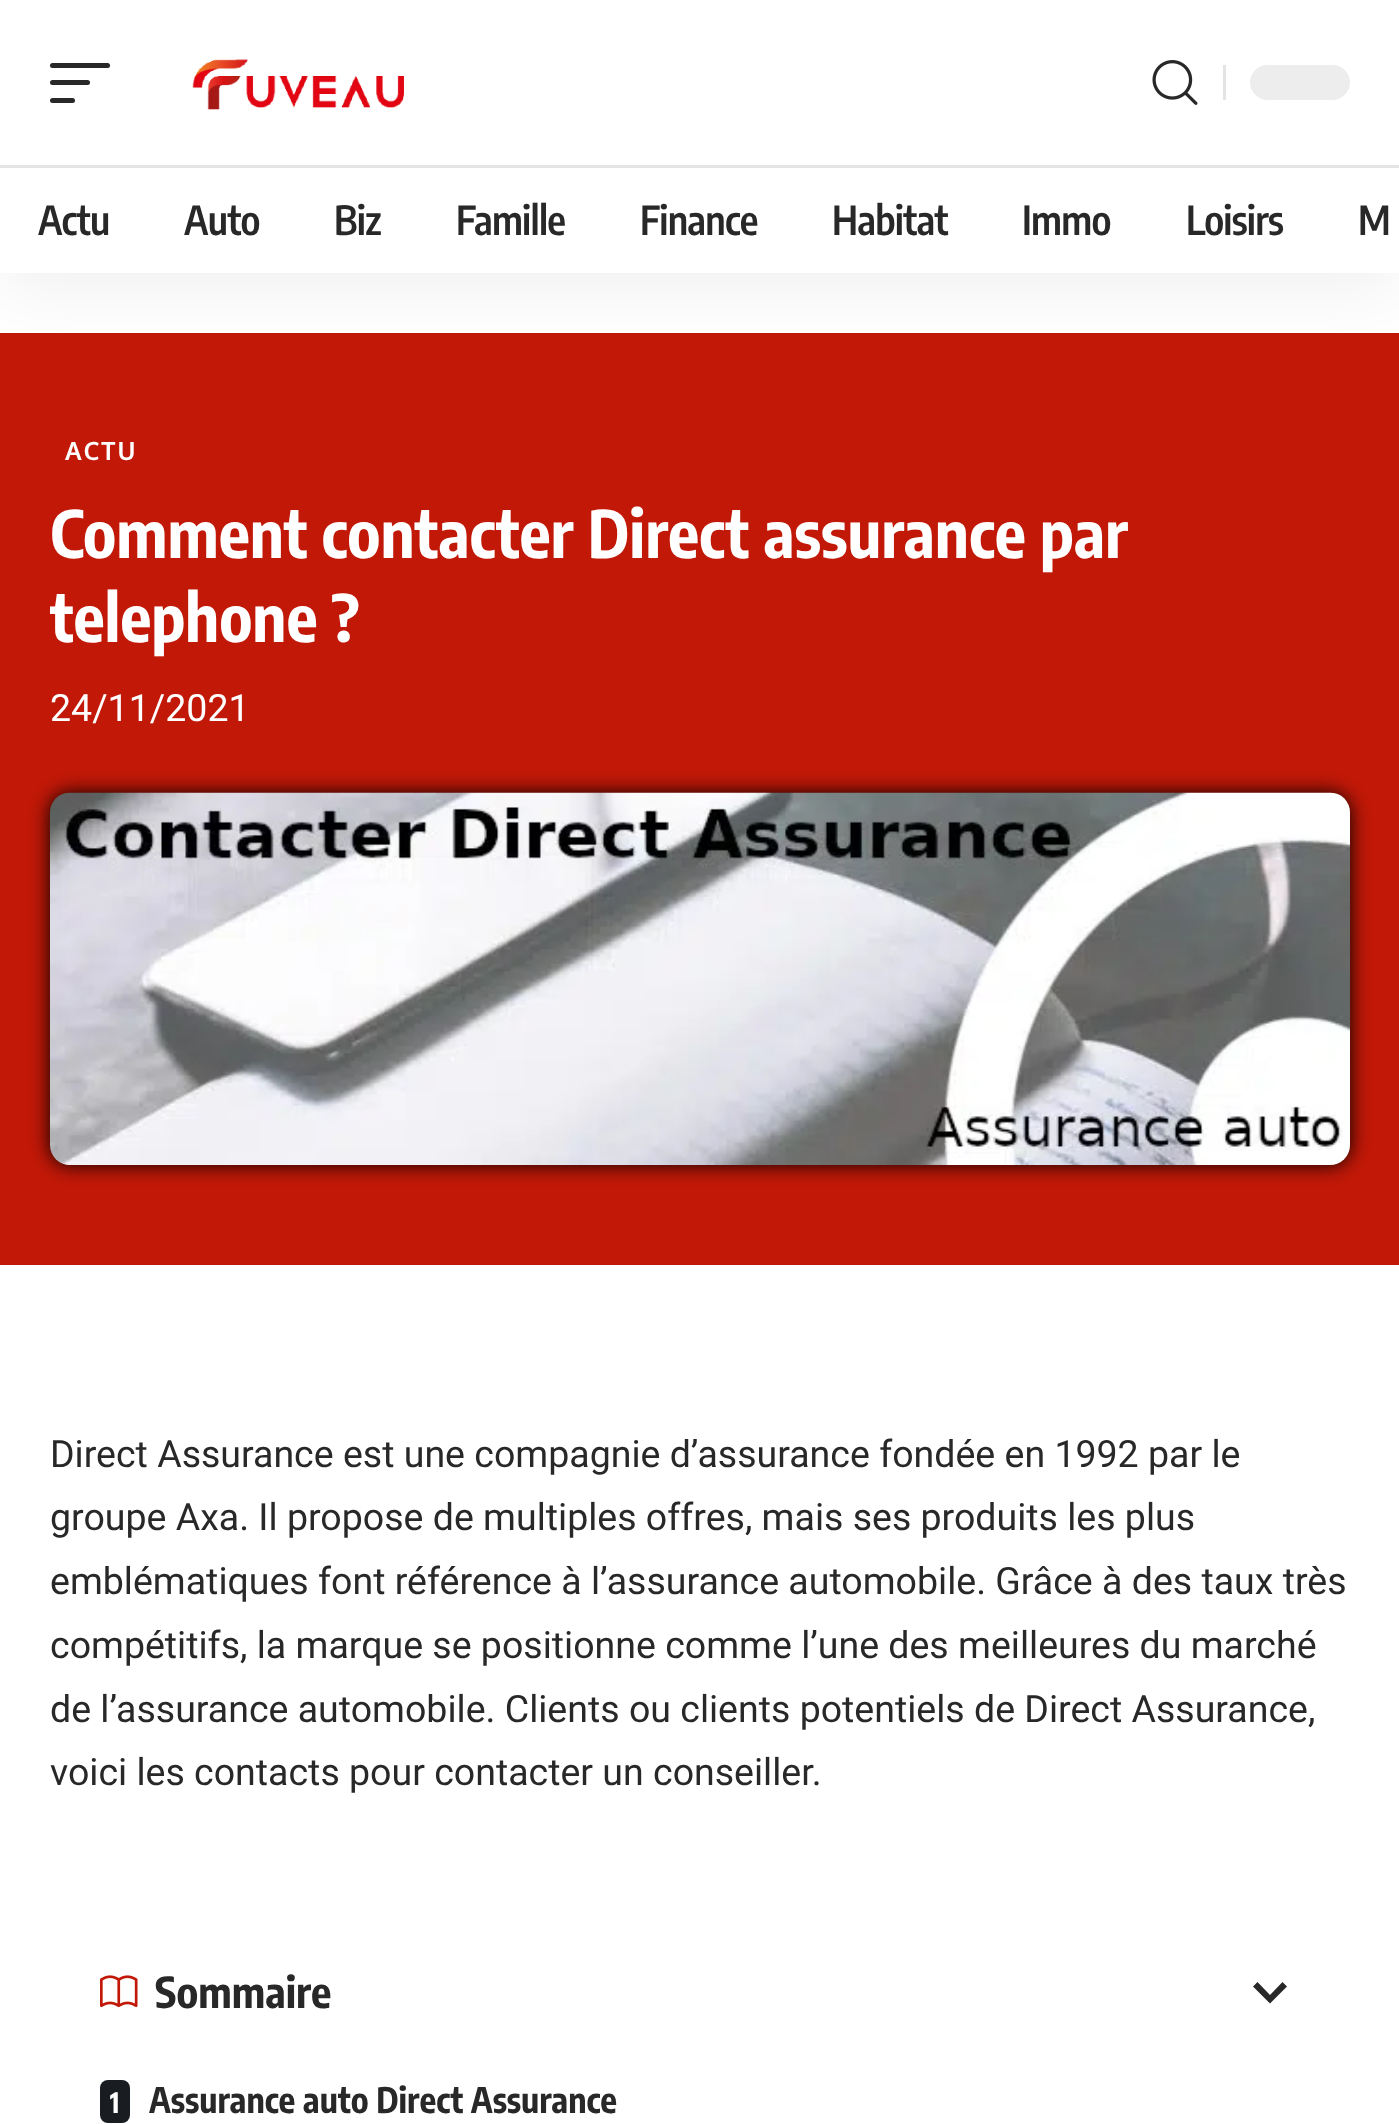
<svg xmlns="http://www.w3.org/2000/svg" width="1399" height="2124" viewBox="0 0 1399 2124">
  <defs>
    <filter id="blur1" x="-50%" y="-200%" width="200%" height="500%"><feGaussianBlur stdDeviation="37.5"/></filter>
    <filter id="blur2" x="-50%" y="-200%" width="200%" height="500%"><feGaussianBlur stdDeviation="10"/></filter>
  </defs>
  <rect width="100%" height="100%" fill="#ffffff"/>
  <rect x="0" y="333" width="1399" height="932" fill="#c21807"/>
  <rect x="0" y="10" width="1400" height="273" fill="#000000" fill-opacity="0.07" filter="url(#blur1)"/>
  <rect x="0" y="0" width="1399" height="273" fill="#ffffff"/>
  <rect x="50" y="63" width="60" height="5" rx="2.5" fill="#282828"/>
  <rect x="50" y="80" width="40" height="5" rx="2.5" fill="#282828"/>
  <rect x="50" y="98" width="25" height="5" rx="2.5" fill="#282828"/>
  <image x="192" y="59" width="212" height="51" href="img1.png"/>
  <image x="1152" y="60" width="46" height="45" href="img2.png"/>
  <rect x="1223" y="65" width="3" height="35" fill="#e4e4e4"/>
  <rect x="1250" y="65" width="100" height="35" rx="17.5" fill="#ededed"/>
  <rect x="0" y="165" width="1399" height="3" fill="#e4e4e4"/>
  <text x="38" y="235" font-family="Encode Sans Condensed" font-size="40" font-weight="600" letter-spacing="-0.75" fill="#282828">Actu</text>
  <text x="184" y="235" font-family="Encode Sans Condensed" font-size="40" font-weight="600" letter-spacing="-0.75" fill="#282828">Auto</text>
  <text x="334" y="235" font-family="Encode Sans Condensed" font-size="40" font-weight="600" letter-spacing="-0.75" fill="#282828">Biz</text>
  <text x="456" y="235" font-family="Encode Sans Condensed" font-size="40" font-weight="600" letter-spacing="-0.75" fill="#282828">Famille</text>
  <text x="640" y="235" font-family="Encode Sans Condensed" font-size="40" font-weight="600" letter-spacing="-0.75" fill="#282828">Finance</text>
  <text x="832" y="235" font-family="Encode Sans Condensed" font-size="40" font-weight="600" letter-spacing="-0.75" fill="#282828">Habitat</text>
  <text x="1022" y="235" font-family="Encode Sans Condensed" font-size="40" font-weight="600" letter-spacing="-0.75" fill="#282828">Immo</text>
  <text x="1186" y="235" font-family="Encode Sans Condensed" font-size="40" font-weight="600" letter-spacing="-0.75" fill="#282828">Loisirs</text>
  <text x="1358" y="235" font-family="Encode Sans Condensed" font-size="40" font-weight="600" letter-spacing="-0.75" fill="#282828">M</text>
  <text x="65" y="460" font-family="Oxygen" font-size="25" font-weight="bold" letter-spacing="2" fill="#ffffff">ACTU</text>
  <text x="50" y="558" font-family="Encode Sans Condensed" font-size="65" font-weight="bold" fill="#ffffff">Comment contacter Direct assurance par</text>
  <text x="50" y="642" font-family="Encode Sans Condensed" font-size="65" font-weight="bold" fill="#ffffff">telephone ?</text>
  <text x="50" y="721" font-family="Roboto" font-size="37.5" fill="#ffffff">24/11/2021</text>
  <rect x="50" y="793" width="1300" height="372" rx="20" fill="#000000" filter="url(#blur2)"/>
  <image x="50" y="792" width="1300" height="373" href="img3.png"/>
  <text x="50" y="1467" font-family="Roboto" font-size="37.5" fill="#282828">Direct Assurance est une compagnie d’assurance fondée en 1992 par le</text>
  <text x="50" y="1530" font-family="Roboto" font-size="37.5" fill="#282828">groupe Axa. Il propose de multiples offres, mais ses produits les plus</text>
  <text x="50" y="1594" font-family="Roboto" font-size="37.5" fill="#282828">emblématiques font référence à l’assurance automobile. Grâce à des taux très</text>
  <text x="50" y="1658" font-family="Roboto" font-size="37.5" fill="#282828">compétitifs, la marque se positionne comme l’une des meilleures du marché</text>
  <text x="50" y="1722" font-family="Roboto" font-size="37.5" fill="#282828">de l’assurance automobile. Clients ou clients potentiels de Direct Assurance,</text>
  <text x="50" y="1785" font-family="Roboto" font-size="37.5" fill="#282828">voici les contacts pour contacter un conseiller.</text>
  <image x="100" y="1975" width="38" height="33" href="img4.png"/>
  <text x="155" y="2008" font-family="Encode Sans Condensed" font-size="42.5" font-weight="bold" fill="#282828">Sommaire</text>
  <path d="M1268 2001.5L1270 2003.5L1287 1986.5L1282.5 1982L1270 1995L1257.5 1982L1253 1986.5Z" fill="#282828"/>
  <rect x="100" y="2080" width="30" height="43" rx="8" fill="#191c20"/>
  <text x="110" y="2113" font-family="Encode Sans Condensed" font-size="28" font-weight="bold" fill="#ffffff">1</text>
  <text x="149" y="2113" font-family="Encode Sans Condensed" font-size="35" font-weight="bold" fill="#282828">Assurance auto Direct Assurance</text>
</svg>
